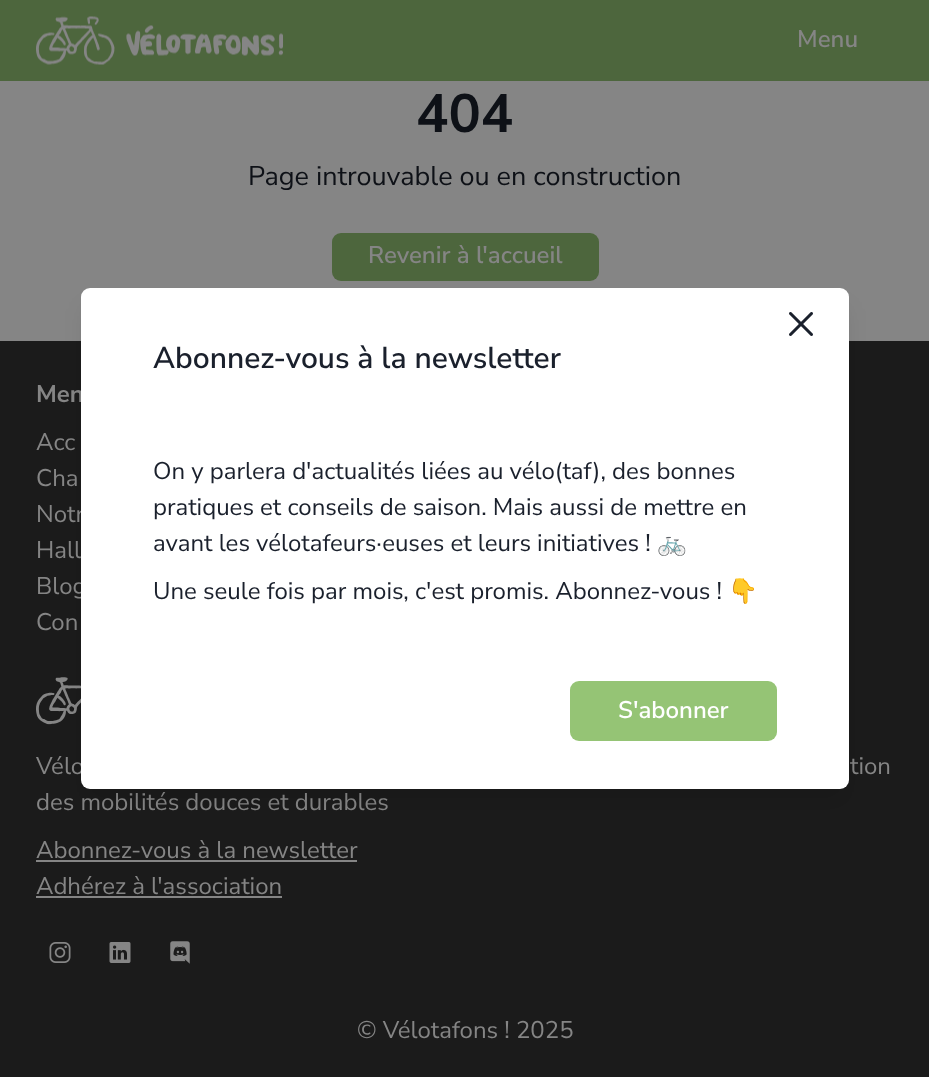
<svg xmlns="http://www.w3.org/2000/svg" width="929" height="1077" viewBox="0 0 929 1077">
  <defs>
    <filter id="blur1" x="-50%" y="-200%" width="200%" height="500%"><feGaussianBlur stdDeviation="11"/></filter>
  </defs>
  <rect width="100%" height="100%" fill="#858585"/>
  <rect x="0" y="0" width="929" height="81" fill="#4d663d"/>
  <image x="36" y="16" width="248" height="49" href="img1.png"/>
  <text x="797" y="47" font-family="Nunito Sans" font-size="24" font-weight="600" fill="#858585">Menu</text>
  <text x="416" y="132" font-family="Nunito Sans" font-size="54" font-weight="bold" fill="#0e1117">404</text>
  <text x="248" y="185" font-family="Nunito Sans" font-size="27" font-weight="200" fill="#0e1117">Page introuvable ou en construction</text>
  <rect x="332" y="233" width="267" height="48" rx="9" fill="#4d663d"/>
  <text x="368" y="263" font-family="Nunito Sans" font-size="24" font-weight="600" fill="#858585">Revenir à l'accueil</text>
  <rect x="0" y="341" width="929" height="736" fill="#1b1b1b"/>
  <text x="36" y="402" font-family="Nunito Sans" font-size="24" font-weight="bold" fill="#858585">Men</text>
  <text x="36" y="450" font-family="Nunito Sans" font-size="24" font-weight="200" fill="#858585">Acc</text>
  <text x="36" y="486" font-family="Nunito Sans" font-size="24" font-weight="200" fill="#858585">Cha</text>
  <text x="36" y="522" font-family="Nunito Sans" font-size="24" font-weight="200" fill="#858585">Notr</text>
  <text x="36" y="558" font-family="Nunito Sans" font-size="24" font-weight="200" fill="#858585">Hall</text>
  <text x="36" y="594" font-family="Nunito Sans" font-size="24" font-weight="200" fill="#858585">Blog</text>
  <text x="36" y="630" font-family="Nunito Sans" font-size="24" font-weight="200" fill="#858585">Con</text>
  <image x="36" y="677" width="45" height="48" href="img2.png"/>
  <text x="36" y="774" font-family="Nunito Sans" font-size="24" font-weight="200" fill="#858585">Vélo</text>
  <text x="850" y="774" font-family="Nunito Sans" font-size="24" font-weight="200" fill="#858585">tion</text>
  <text x="36" y="810" font-family="Nunito Sans" font-size="24" font-weight="200" fill="#858585">des mobilités douces et durables</text>
  <text x="36" y="858" font-family="Nunito Sans" font-size="24" font-weight="200" fill="#858585">Abonnez-vous à la newsletter</text>
  <rect x="36" y="860" width="321" height="2" fill="#858585"/>
  <text x="36" y="894" font-family="Nunito Sans" font-size="24" font-weight="200" fill="#858585">Adhérez à l'association</text>
  <rect x="36" y="896" width="246" height="2" fill="#858585"/>
  <image x="49" y="942" width="22" height="21" href="img3.png"/>
  <image x="109" y="942" width="22" height="21" href="img4.png"/>
  <image x="170" y="941" width="20" height="23" href="img5.png"/>
  <text x="357" y="1038" font-family="Nunito Sans" font-size="24" font-weight="200" fill="#858585">© Vélotafons ! 2025</text>
  <rect x="86" y="308" width="759" height="492" rx="5" fill="#000000" fill-opacity="0.1" filter="url(#blur1)"/>
  <rect x="81" y="288" width="768" height="501" rx="9" fill="#ffffff"/>
  <image x="789" y="312" width="24" height="24" href="img6.png"/>
  <text x="153" y="368" font-family="Nunito Sans" font-size="30" font-weight="600" fill="#1a202c">Abonnez-vous à la newsletter</text>
  <text x="153" y="479" font-family="Nunito Sans" font-size="24" font-weight="200" fill="#1a202c">On y parlera d'actualités liées au vélo(taf), des bonnes</text>
  <text x="153" y="515" font-family="Nunito Sans" font-size="24" font-weight="200" fill="#1a202c">pratiques et conseils de saison. Mais aussi de mettre en</text>
  <text x="153" y="551" font-family="Nunito Sans" font-size="24" font-weight="200" fill="#1a202c">avant les vélotafeurs·euses et leurs initiatives !</text>
  <text x="657" y="551" font-family="Noto Color Emoji" font-size="24" fill="#1a202c">🚲</text>
  <text x="153" y="599" font-family="Nunito Sans" font-size="24" font-weight="200" fill="#1a202c">Une seule fois par mois, c'est promis. Abonnez-vous !</text>
  <text x="728" y="599" font-family="Noto Color Emoji" font-size="24" fill="#1a202c">👇</text>
  <rect x="570" y="681" width="207" height="60" rx="9" fill="#95c475"/>
  <text x="618" y="718" font-family="Nunito Sans" font-size="24" font-weight="600" fill="#ffffff">S'abonner</text>
</svg>
